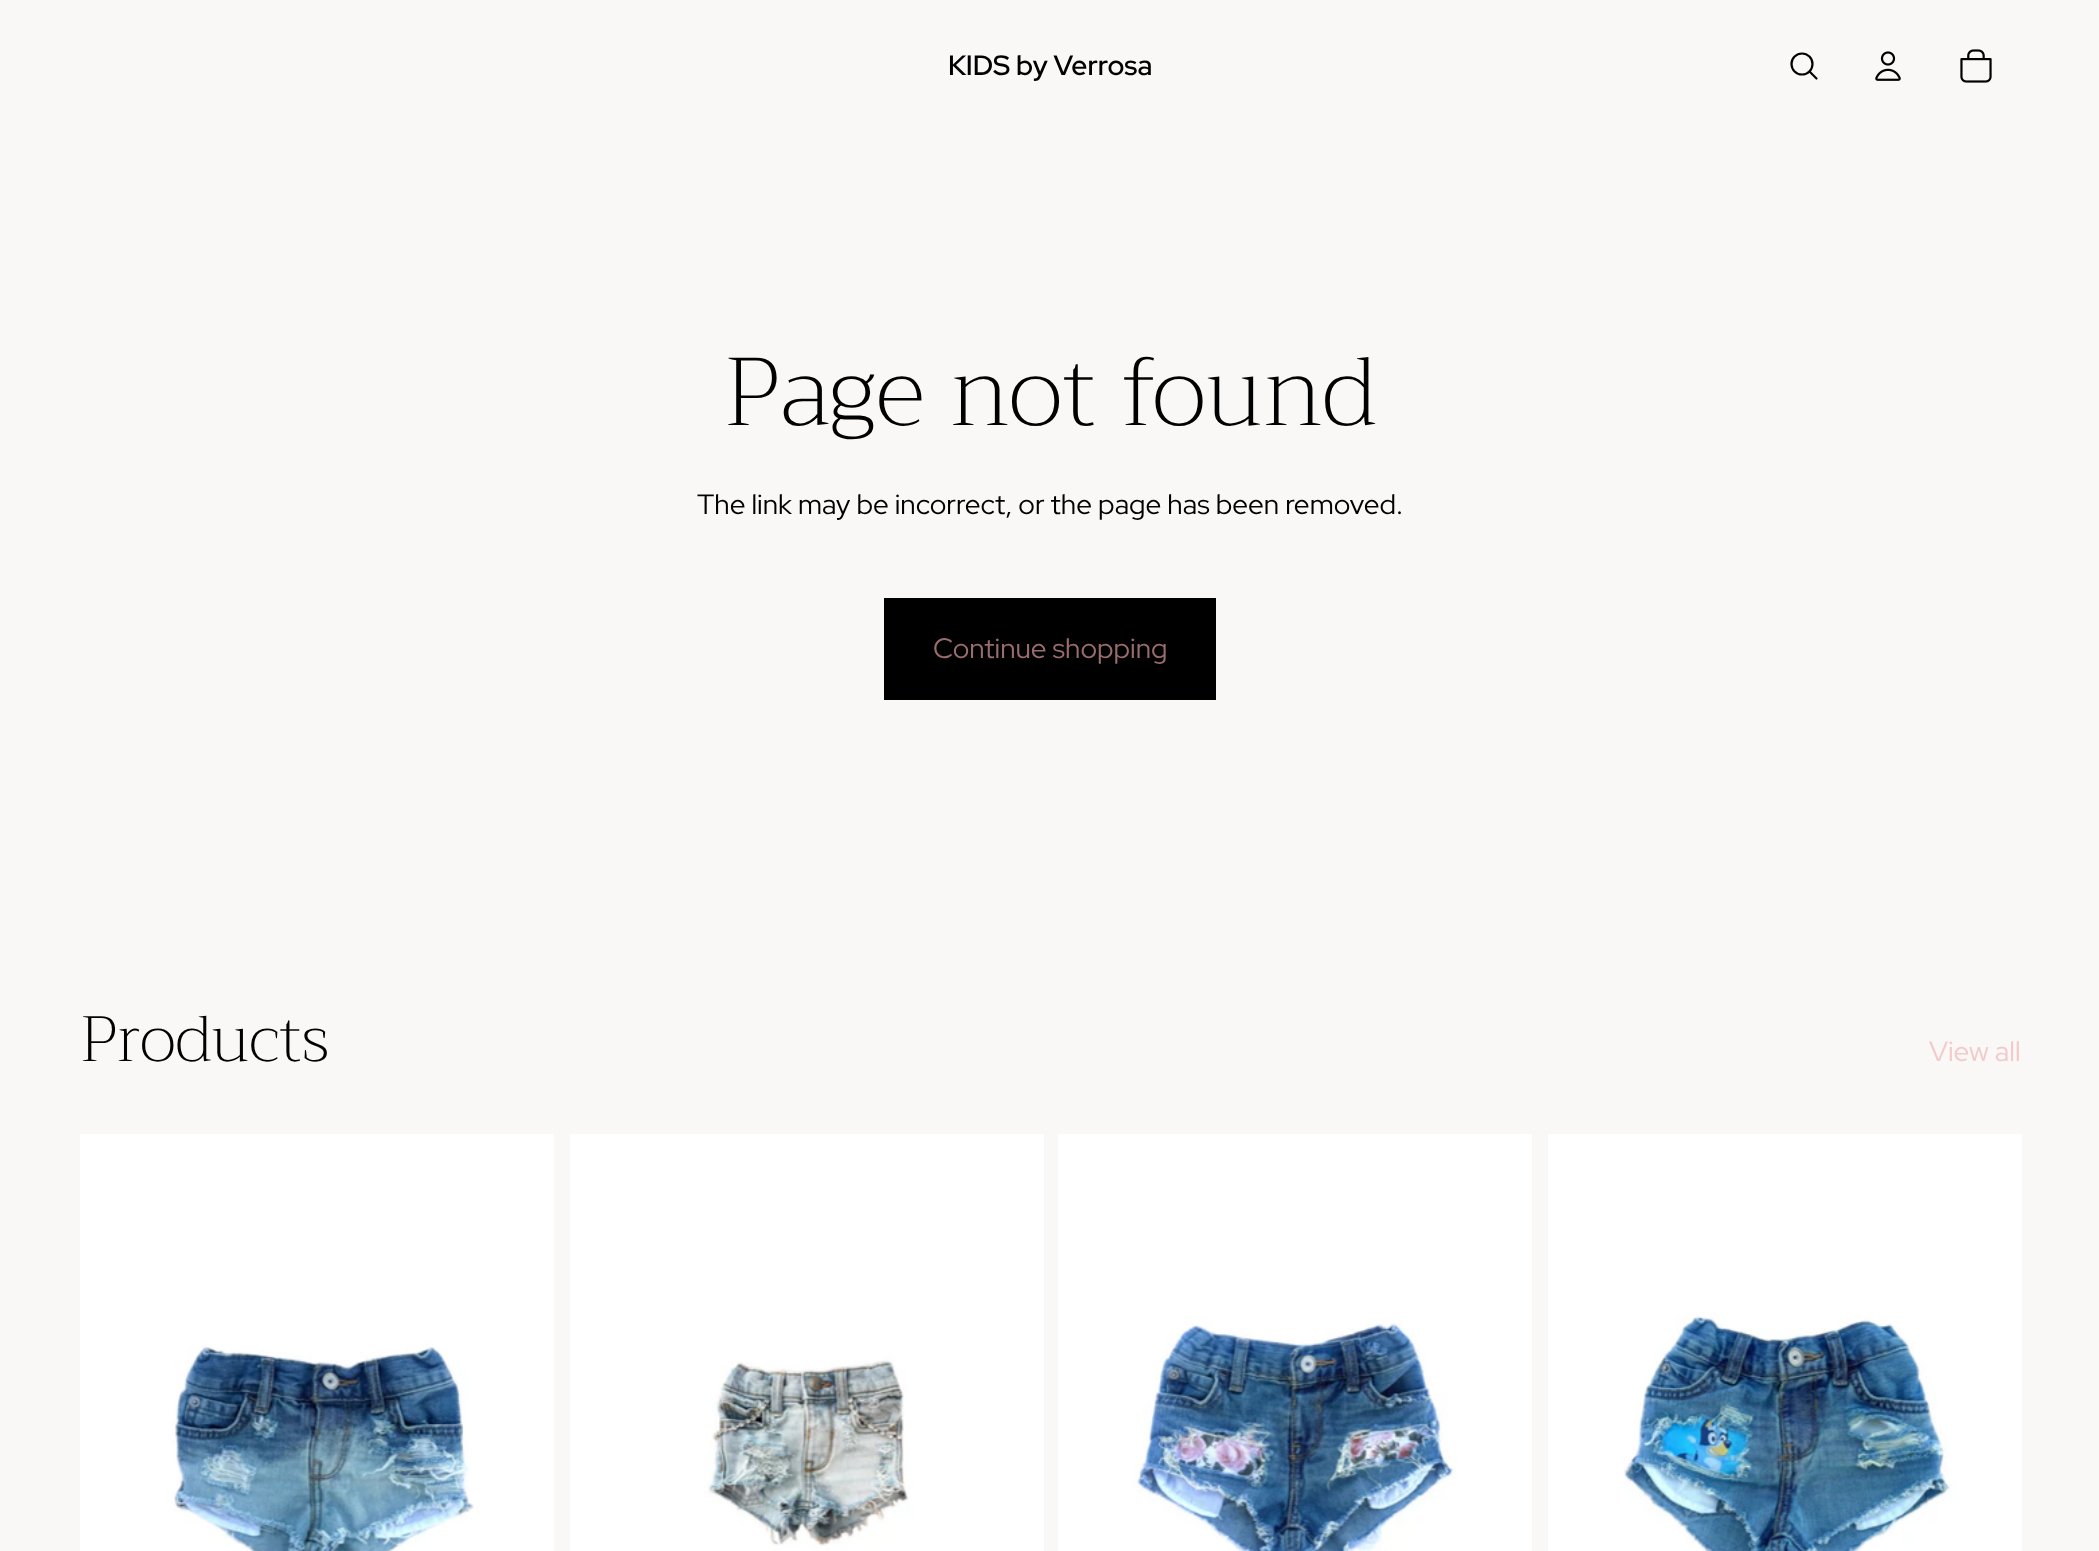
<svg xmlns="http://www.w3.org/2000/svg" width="2099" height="1551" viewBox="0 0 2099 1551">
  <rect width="100%" height="100%" fill="#f9f8f6"/>
  <text x="948" y="75" font-family="Red Hat Display" font-size="28" font-weight="600" fill="#000000">KIDS by Verrosa</text>
  <circle cx="1802" cy="64" r="10.5" fill="none" stroke="#000000" stroke-width="2.2"/>
  <path d="M1809.5 71.5L1816.5 78.5" fill="none" stroke="#000000" stroke-width="2.2" stroke-linecap="round" stroke-linejoin="round"/>
  <image x="1875" y="51" width="26" height="30" href="img1.png"/>
  <image x="1960" y="49" width="32" height="34" href="img2.png"/>
  <text x="724" y="425" font-family="Trirong" font-size="96" font-weight="300" fill="#000000">Page not found</text>
  <text x="697" y="514" font-family="Red Hat Display" font-size="28" fill="#000000">The link may be incorrect, or the page has been removed.</text>
  <rect x="884" y="598" width="332" height="102" fill="#000000"/>
  <text x="933" y="658" font-family="Red Hat Display" font-size="28" fill="#9a6d6d">Continue shopping</text>
  <text x="80" y="1061" font-family="Trirong" font-size="64" font-weight="300" fill="#000000">Products</text>
  <text x="1929" y="1061" font-family="Red Hat Display" font-size="28" fill="#f3caca">View all</text>
  <image x="80" y="1134" width="474" height="417" href="img3.png"/>
  <image x="570" y="1134" width="474" height="417" href="img4.png"/>
  <image x="1058" y="1134" width="474" height="417" href="img5.png"/>
  <image x="1548" y="1134" width="474" height="417" href="img6.png"/>
</svg>
